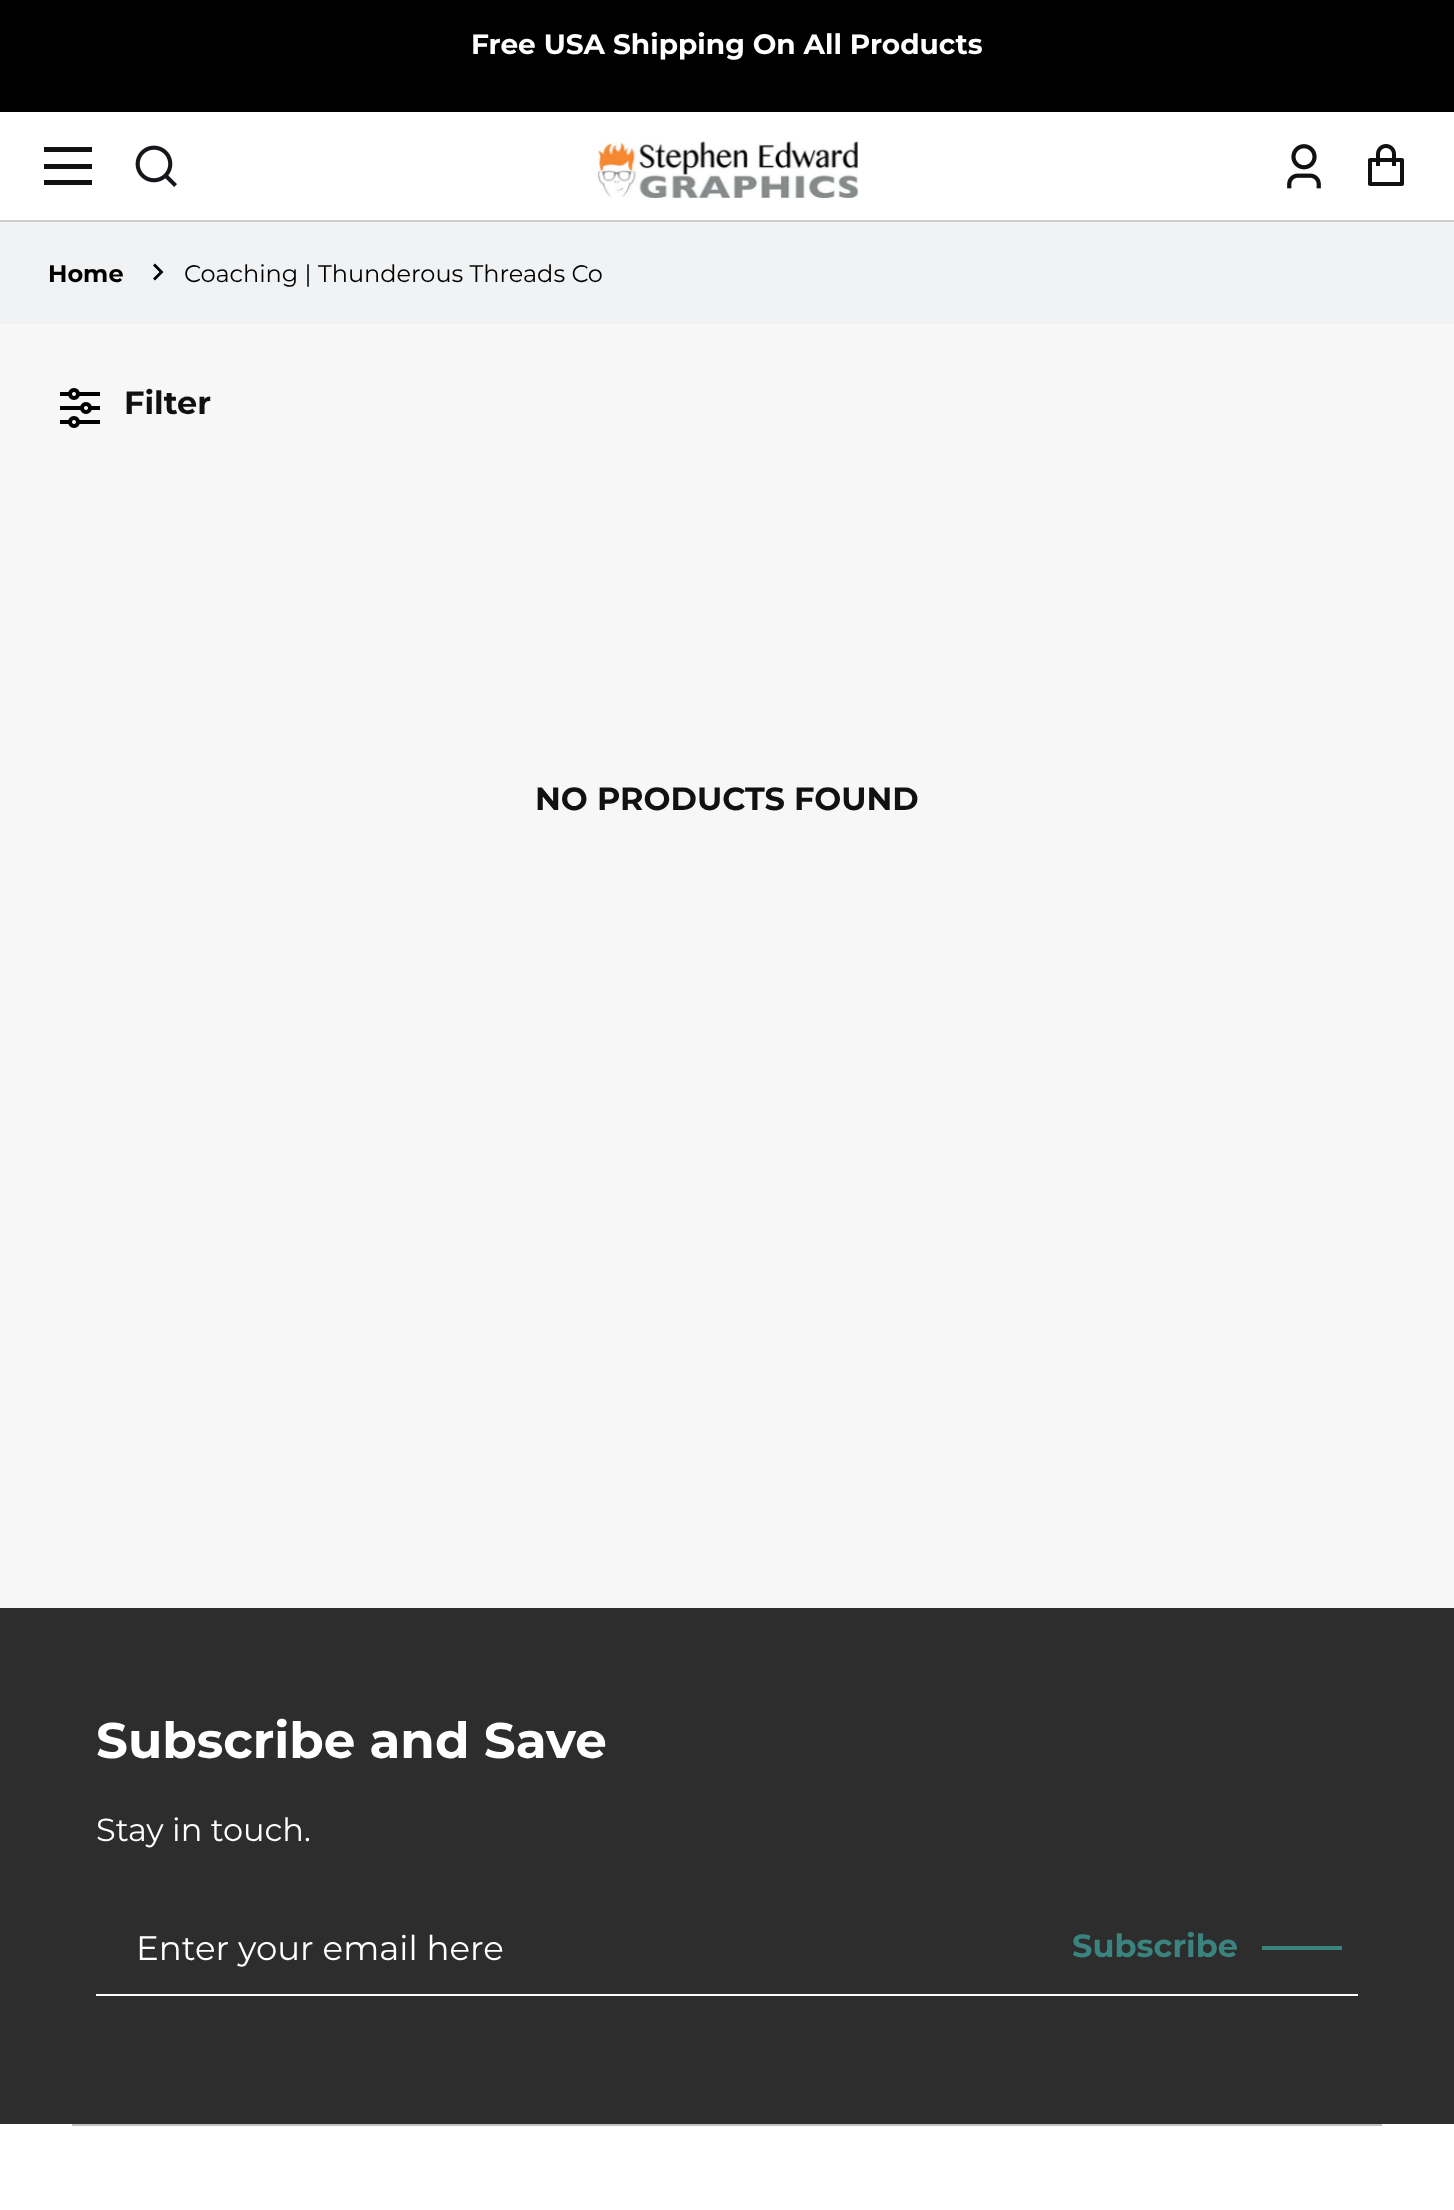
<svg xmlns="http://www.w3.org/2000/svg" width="1454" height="2210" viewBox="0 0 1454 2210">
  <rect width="100%" height="100%" fill="#f7f7f7"/>
  <rect x="0" y="0" width="1454" height="112" fill="#000000"/>
  <text x="471" y="54" font-family="Montserrat" font-size="28" font-weight="bold" fill="#ffffff">Free USA Shipping On All Products</text>
  <rect x="0" y="112" width="1454" height="108" fill="#ffffff"/>
  <rect x="0" y="220" width="1454" height="2" fill="#cecece"/>
  <rect x="44" y="180" width="48" height="5" fill="#111111"/>
  <rect x="44" y="164" width="48" height="5" fill="#111111"/>
  <rect x="44" y="147" width="48" height="5" fill="#111111"/>
  <image x="135" y="145" width="42" height="42" href="img1.png"/>
  <image x="597" y="141" width="261" height="57" href="img2.png"/>
  <image x="1287" y="144" width="34" height="45" href="img3.png"/>
  <image x="1368" y="144" width="36" height="42" href="img4.png"/>
  <rect x="0" y="222" width="1454" height="102" fill="#f1f2f4"/>
  <text x="48" y="282" font-family="Montserrat" font-size="24" font-weight="bold" fill="#000000">Home</text>
  <path d="M159.5 272L153 265.5L155 263.5L163.5 272L155 280.5L153 278.5Z" fill="#000000"/>
  <text x="184" y="282" font-family="Montserrat" font-size="24" fill="#000000">Coaching | Thunderous Threads Co</text>
  <image x="60" y="388" width="40" height="40" href="img5.png"/>
  <text x="124" y="414" font-family="Montserrat" font-size="32" font-weight="bold" fill="#111111">Filter</text>
  <text x="535" y="810" font-family="Montserrat" font-size="32" font-weight="bold" fill="#111111">NO PRODUCTS FOUND</text>
  <rect x="0" y="1608" width="1454" height="516" fill="#2d2d2d"/>
  <text x="96" y="1758" font-family="Montserrat" font-size="50" font-weight="bold" fill="#ffffff">Subscribe and Save</text>
  <text x="96" y="1841" font-family="Montserrat" font-size="32" fill="#ffffff">Stay in touch.</text>
  <rect x="96" y="1994" width="1262" height="2" fill="#ffffff"/>
  <text x="136" y="1960" font-family="Montserrat" font-size="34" fill="#ffffff">Enter your email here</text>
  <text x="1072" y="1957" font-family="Montserrat" font-size="32" font-weight="bold" fill="#3a837e">Subscribe</text>
  <rect x="1262" y="1946" width="80" height="4" fill="#3a837e"/>
  <rect x="0" y="2124" width="1454" height="86" fill="#ffffff"/>
  <rect x="72" y="2124" width="1310" height="2" fill="#c1c1c1"/>
</svg>
